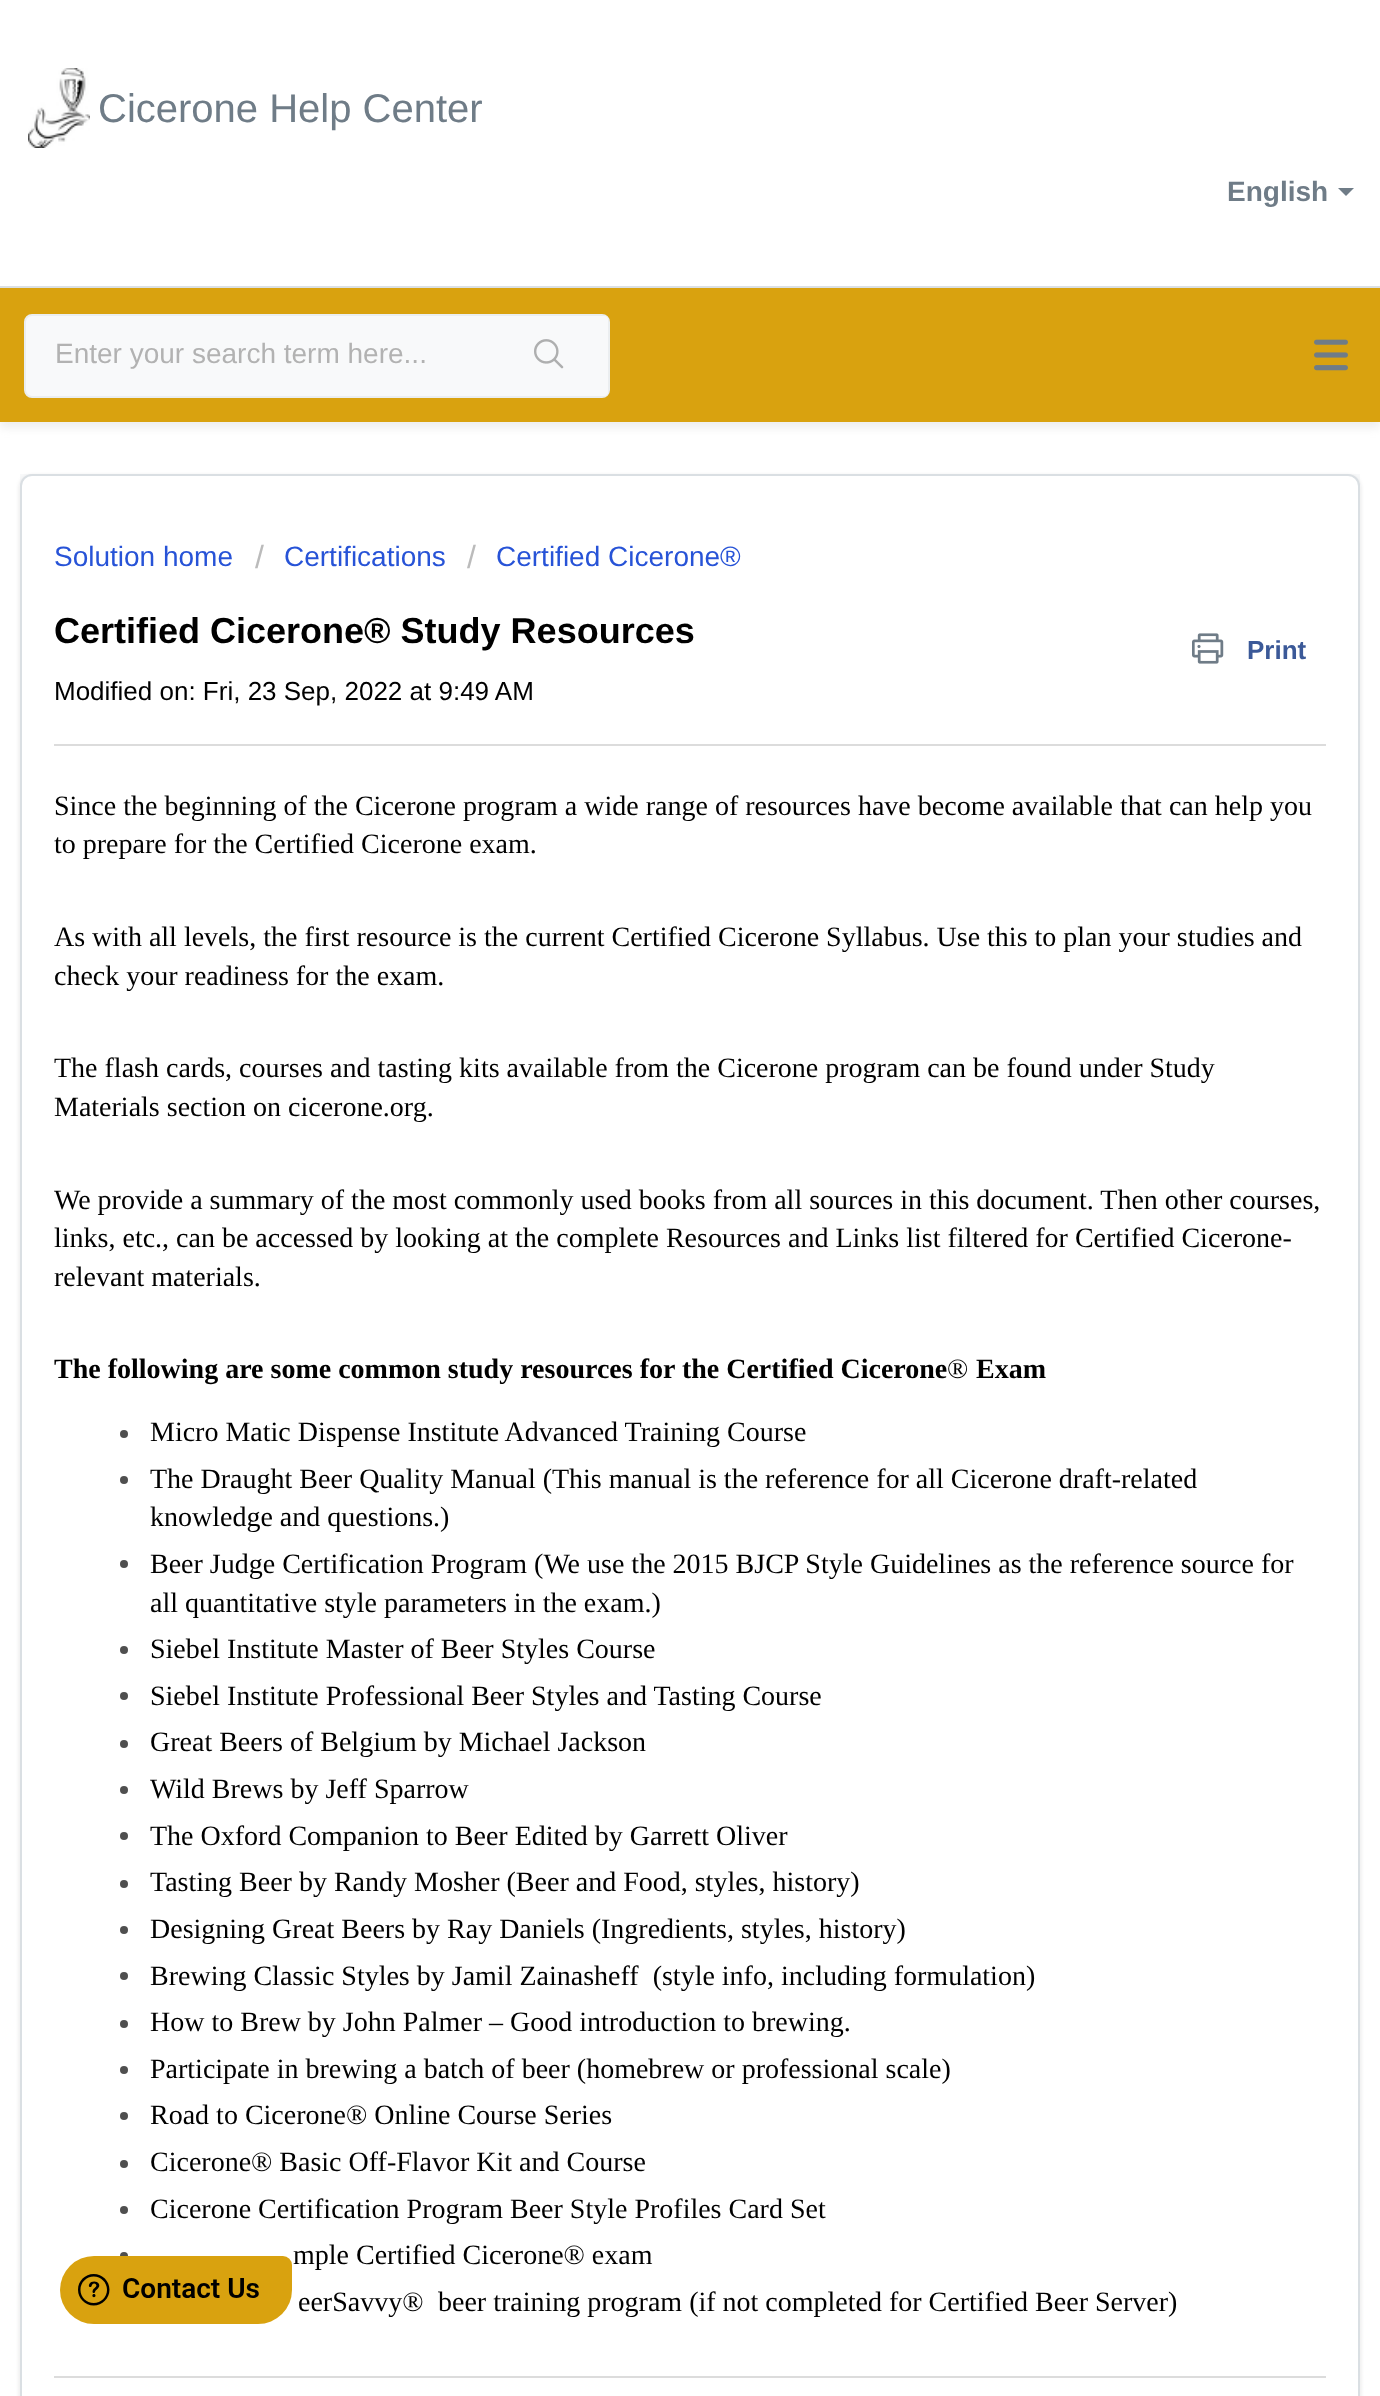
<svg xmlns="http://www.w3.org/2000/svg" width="1380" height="2396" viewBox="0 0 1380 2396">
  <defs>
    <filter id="blur1" x="-50%" y="-200%" width="200%" height="500%"><feGaussianBlur stdDeviation="4"/></filter>
    <filter id="blur2" x="-50%" y="-200%" width="200%" height="500%"><feGaussianBlur stdDeviation="2"/></filter>
  </defs>
  <rect width="100%" height="100%" fill="#ffffff"/>
  <rect x="0" y="286" width="1380" height="2" fill="#dadfe3"/>
  <image x="28" y="68" width="62" height="80" href="img1.png"/>
  <text x="98" y="122" font-family="Liberation Sans" font-size="40" fill="#6f7c87">Cicerone Help Center</text>
  <text x="1227" y="201" font-family="Liberation Sans" font-size="28" font-weight="bold" fill="#6f7c87">English</text>
  <path d="M1338 188H1354L1346 196Z" fill="#6f7c87"/>
  <rect x="0" y="294" width="1380" height="134" fill="#eeeeee" filter="url(#blur1)"/>
  <rect x="0" y="288" width="1380" height="134" fill="#d9a20f"/>
  <image x="1314" y="339" width="34" height="32" href="img2.png"/>
  <rect x="25" y="315" width="584" height="82" rx="7" fill="#f8f9fa" stroke="#ebeef0" stroke-width="2"/>
  <text x="55" y="363" font-family="Liberation Sans" font-size="28" fill="#b2b2b2">Enter your search term here...</text>
  <rect x="492" y="316" width="116" height="80" rx="4" fill="#f8f9fa"/>
  <image x="534" y="339" width="30" height="30" href="img3.png"/>
  <rect x="20" y="474" width="1340" height="12" fill="#f8f9fa"/>
  <rect x="20" y="476" width="1340" height="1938" rx="12" fill="#3f3f44" fill-opacity="0.15" filter="url(#blur2)"/>
  <rect x="21" y="475" width="1338" height="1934" rx="11" fill="#ffffff" stroke="#dadfe3" stroke-width="2"/>
  <text x="54" y="566" font-family="Liberation Sans" font-size="28" fill="#2753d7">Solution home</text>
  <text x="255" y="568" font-family="Liberation Sans" font-size="32" fill="#bbbbbb">/</text>
  <text x="284" y="566" font-family="Liberation Sans" font-size="28" fill="#2753d7">Certifications</text>
  <text x="467" y="568" font-family="Liberation Sans" font-size="32" fill="#bbbbbb">/</text>
  <text x="496" y="566" font-family="Liberation Sans" font-size="28" fill="#2753d7">Certified Cicerone®</text>
  <text x="54" y="643" font-family="Liberation Sans" font-size="36" font-weight="bold" fill="#000000">Certified Cicerone® Study Resources</text>
  <image x="1192" y="633" width="32" height="31" href="img4.png"/>
  <text x="1247" y="659" font-family="Liberation Sans" font-size="26" font-weight="bold" fill="#3b5998">Print</text>
  <text x="54" y="700" font-family="Liberation Sans" font-size="26" fill="#000000">Modified on: Fri, 23 Sep, 2022 at 9:49 AM</text>
  <rect x="54" y="744" width="1272" height="2" fill="#dcdcdc"/>
  <text x="54" y="815" font-family="Liberation Serif" font-size="28" fill="#000000">Since the beginning of the Cicerone program a wide range of resources have become available that can help you</text>
  <text x="54" y="853" font-family="Liberation Serif" font-size="28" fill="#000000">to prepare for the Certified Cicerone exam.</text>
  <text x="54" y="946" font-family="Liberation Serif" font-size="28" fill="#000000">As with all levels, the first resource is the current Certified Cicerone Syllabus. Use this to plan your studies and</text>
  <text x="54" y="985" font-family="Liberation Serif" font-size="28" fill="#000000">check your readiness for the exam.</text>
  <text x="54" y="1077" font-family="Liberation Serif" font-size="28" fill="#000000">The flash cards, courses and tasting kits available from the Cicerone program can be found under Study</text>
  <text x="54" y="1116" font-family="Liberation Serif" font-size="28" fill="#000000">Materials section on cicerone.org.</text>
  <text x="54" y="1209" font-family="Liberation Serif" font-size="28" fill="#000000">We provide a summary of the most commonly used books from all sources in this document. Then other courses,</text>
  <text x="54" y="1247" font-family="Liberation Serif" font-size="28" fill="#000000">links, etc., can be accessed by looking at the complete Resources and Links list filtered for Certified Cicerone-</text>
  <text x="54" y="1286" font-family="Liberation Serif" font-size="28" fill="#000000">relevant materials.</text>
  <text x="54" y="1378" font-family="Liberation Serif" font-size="28" font-weight="bold" fill="#000000">The following are some common study resources for the Certified Cicerone</text>
  <text x="947" y="1378" font-family="Liberation Serif" font-size="28" fill="#000000">®</text>
  <text x="976" y="1378" font-family="Liberation Serif" font-size="28" font-weight="bold" fill="#000000">Exam</text>
  <circle cx="124" cy="1434" r="4" fill="#4f4f4f"/>
  <text x="150" y="1441" font-family="Liberation Serif" font-size="28" fill="#000000">Micro Matic Dispense Institute Advanced Training Course</text>
  <circle cx="124" cy="1480" r="4" fill="#4f4f4f"/>
  <text x="150" y="1488" font-family="Liberation Serif" font-size="28" fill="#000000">The Draught Beer Quality Manual (This manual is the reference for all Cicerone draft-related</text>
  <text x="150" y="1526" font-family="Liberation Serif" font-size="28" fill="#000000">knowledge and questions.)</text>
  <circle cx="124" cy="1564" r="4" fill="#4f4f4f"/>
  <text x="150" y="1573" font-family="Liberation Serif" font-size="28" fill="#000000">Beer Judge Certification Program (We use the 2015 BJCP Style Guidelines as the reference source for</text>
  <text x="150" y="1612" font-family="Liberation Serif" font-size="28" fill="#000000">all quantitative style parameters in the exam.)</text>
  <circle cx="124" cy="1650" r="4" fill="#4f4f4f"/>
  <text x="150" y="1658" font-family="Liberation Serif" font-size="28" fill="#000000">Siebel Institute Master of Beer Styles Course</text>
  <circle cx="124" cy="1696" r="4" fill="#4f4f4f"/>
  <text x="150" y="1705" font-family="Liberation Serif" font-size="28" fill="#000000">Siebel Institute Professional Beer Styles and Tasting Course</text>
  <circle cx="124" cy="1744" r="4" fill="#4f4f4f"/>
  <text x="150" y="1751" font-family="Liberation Serif" font-size="28" fill="#000000">Great Beers of Belgium by Michael Jackson</text>
  <circle cx="124" cy="1790" r="4" fill="#4f4f4f"/>
  <text x="150" y="1798" font-family="Liberation Serif" font-size="28" fill="#000000">Wild Brews by Jeff Sparrow</text>
  <circle cx="124" cy="1836" r="4" fill="#4f4f4f"/>
  <text x="150" y="1845" font-family="Liberation Serif" font-size="28" fill="#000000">The Oxford Companion to Beer Edited by Garrett Oliver</text>
  <circle cx="124" cy="1884" r="4" fill="#4f4f4f"/>
  <text x="150" y="1891" font-family="Liberation Serif" font-size="28" fill="#000000">Tasting Beer by Randy Mosher (Beer and Food, styles, history)</text>
  <circle cx="124" cy="1930" r="4" fill="#4f4f4f"/>
  <text x="150" y="1938" font-family="Liberation Serif" font-size="28" fill="#000000">Designing Great Beers by Ray Daniels (Ingredients, styles, history)</text>
  <circle cx="124" cy="1976" r="4" fill="#4f4f4f"/>
  <text x="150" y="1985" font-family="Liberation Serif" font-size="28" fill="#000000" xml:space="preserve">Brewing Classic Styles by Jamil Zainasheff  (style info, including formulation)</text>
  <circle cx="124" cy="2024" r="4" fill="#4f4f4f"/>
  <text x="150" y="2031" font-family="Liberation Serif" font-size="28" fill="#000000">How to Brew by John Palmer – Good introduction to brewing.</text>
  <circle cx="124" cy="2070" r="4" fill="#4f4f4f"/>
  <text x="150" y="2078" font-family="Liberation Serif" font-size="28" fill="#000000">Participate in brewing a batch of beer (homebrew or professional scale)</text>
  <circle cx="124" cy="2116" r="4" fill="#4f4f4f"/>
  <text x="150" y="2124" font-family="Liberation Serif" font-size="28" fill="#000000">Road to Cicerone® Online Course Series</text>
  <circle cx="124" cy="2164" r="4" fill="#4f4f4f"/>
  <text x="150" y="2171" font-family="Liberation Serif" font-size="28" fill="#000000">Cicerone® Basic Off-Flavor Kit and Course</text>
  <circle cx="124" cy="2210" r="4" fill="#4f4f4f"/>
  <text x="150" y="2218" font-family="Liberation Serif" font-size="28" fill="#000000">Cicerone Certification Program Beer Style Profiles Card Set</text>
  <circle cx="124" cy="2256" r="4" fill="#4f4f4f"/>
  <text x="293" y="2264" font-family="Liberation Serif" font-size="28" fill="#000000">mple Certified Cicerone® exam</text>
  <text x="298" y="2311" font-family="Liberation Serif" font-size="28" fill="#000000">eerSavvy®</text>
  <text x="438" y="2311" font-family="Liberation Serif" font-size="28" fill="#000000">beer training program (if not completed for Certified Beer Server)</text>
  <rect x="54" y="2376" width="1272" height="2" fill="#dcdcdc"/>
  <image x="60" y="2256" width="232" height="68" href="img5.png"/>
</svg>
